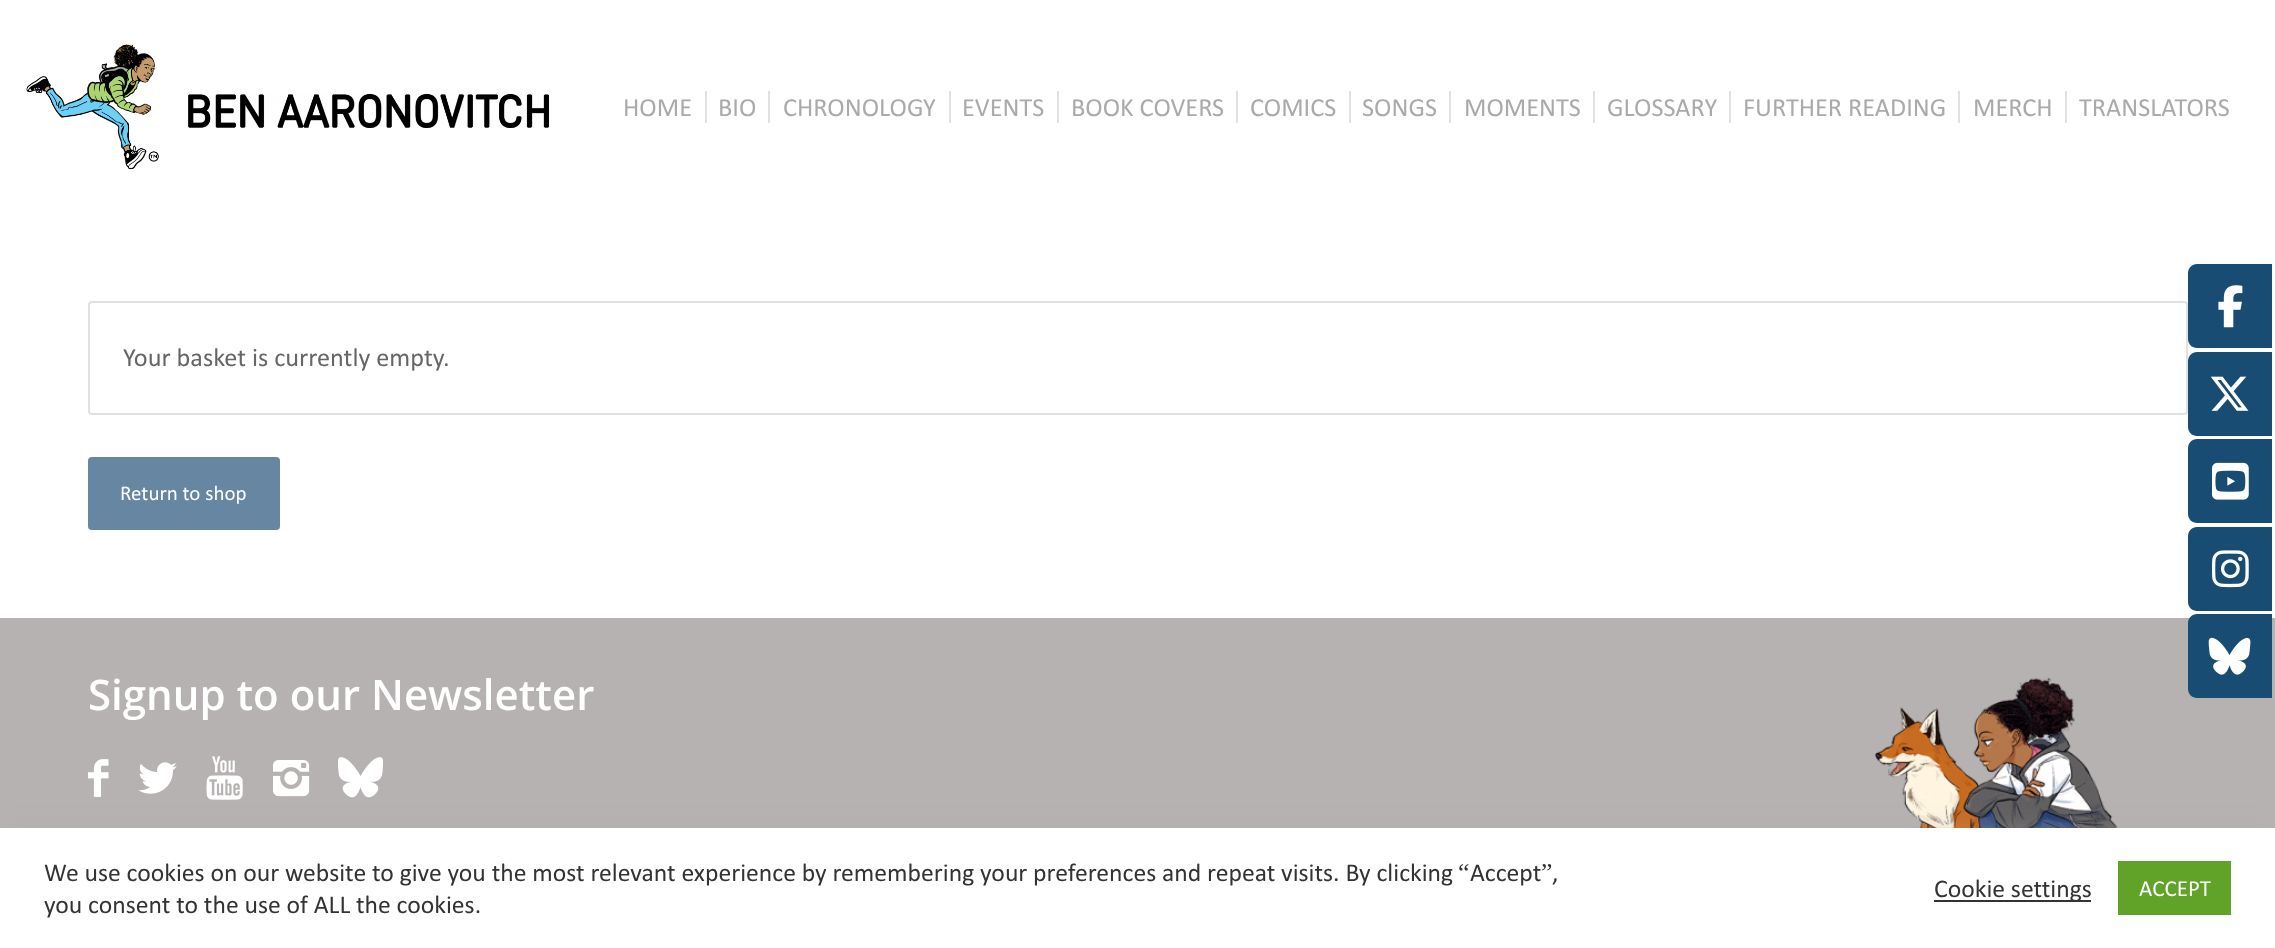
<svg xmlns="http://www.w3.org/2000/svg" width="2275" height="948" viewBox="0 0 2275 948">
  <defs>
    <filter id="blur1" x="-50%" y="-200%" width="200%" height="500%"><feGaussianBlur stdDeviation="9"/></filter>
  </defs>
  <rect width="100%" height="100%" fill="#ffffff"/>
  <image x="26" y="44" width="524" height="126" href="img1.png"/>
  <text x="623" y="116" font-family="Calibri" font-size="26.25" fill="#aaaaaa">HOME</text>
  <text x="718" y="116" font-family="Calibri" font-size="26.25" fill="#aaaaaa">BIO</text>
  <rect x="705" y="91" width="2" height="32" fill="#e1e1e1"/>
  <text x="783" y="116" font-family="Calibri" font-size="26.25" fill="#aaaaaa">CHRONOLOGY</text>
  <rect x="768" y="91" width="2" height="32" fill="#e1e1e1"/>
  <text x="962" y="116" font-family="Calibri" font-size="26.25" fill="#aaaaaa">EVENTS</text>
  <rect x="949" y="91" width="2" height="32" fill="#e1e1e1"/>
  <text x="1071" y="116" font-family="Calibri" font-size="26.25" fill="#aaaaaa">BOOK COVERS</text>
  <rect x="1057" y="91" width="2" height="32" fill="#e1e1e1"/>
  <text x="1250" y="116" font-family="Calibri" font-size="26.25" fill="#aaaaaa">COMICS</text>
  <rect x="1236" y="91" width="2" height="32" fill="#e1e1e1"/>
  <text x="1362" y="116" font-family="Calibri" font-size="26.25" fill="#aaaaaa">SONGS</text>
  <rect x="1349" y="91" width="2" height="32" fill="#e1e1e1"/>
  <text x="1464" y="116" font-family="Calibri" font-size="26.25" fill="#aaaaaa">MOMENTS</text>
  <rect x="1449" y="91" width="2" height="32" fill="#e1e1e1"/>
  <text x="1607" y="116" font-family="Calibri" font-size="26.25" fill="#aaaaaa">GLOSSARY</text>
  <rect x="1593" y="91" width="2" height="32" fill="#e1e1e1"/>
  <text x="1743" y="116" font-family="Calibri" font-size="26.25" fill="#aaaaaa">FURTHER READING</text>
  <rect x="1729" y="91" width="2" height="32" fill="#e1e1e1"/>
  <text x="1973" y="116" font-family="Calibri" font-size="26.25" fill="#aaaaaa">MERCH</text>
  <rect x="1958" y="91" width="2" height="32" fill="#e1e1e1"/>
  <text x="2079" y="116" font-family="Calibri" font-size="26.25" fill="#aaaaaa">TRANSLATORS</text>
  <rect x="2065" y="91" width="2" height="32" fill="#e1e1e1"/>
  <rect x="89" y="302" width="2098" height="112" rx="3" fill="none" stroke="#e1e1e1" stroke-width="2"/>
  <text x="123" y="366" font-family="Calibri" font-size="26.25" fill="#666666">Your basket is currently empty.</text>
  <rect x="88" y="457" width="192" height="73" rx="4" fill="#6786a1"/>
  <text x="120" y="500" font-family="Calibri" font-size="21" fill="#ffffff">Return to shop</text>
  <rect x="0" y="618" width="2275" height="210" fill="#b6b2b1"/>
  <text x="88" y="710" font-family="Open Sans" font-size="42" font-weight="600" fill="#ffffff">Signup to our Newsletter</text>
  <image x="88" y="759" width="21" height="38" href="img2.png"/>
  <image x="138" y="762" width="39" height="32" href="img3.png"/>
  <image x="206" y="756" width="37" height="44" href="img4.png"/>
  <image x="273" y="760" width="37" height="37" href="img5.png"/>
  <image x="338" y="757" width="45" height="41" href="img6.png"/>
  <image x="1874" y="677" width="244" height="151" href="img7.png"/>
  <path d="M2197 264H2272V348H2197C2192 348 2188 344 2188 339V273C2188 268 2192 264 2197 264Z" fill="#184c72"/>
  <image x="2218" y="285" width="25" height="43" href="img8.png"/>
  <path d="M2197 352H2272V436H2197C2192 436 2188 432 2188 427V361C2188 356 2192 352 2197 352Z" fill="#184c72"/>
  <image x="2210" y="376" width="39" height="35" href="img9.png"/>
  <path d="M2197 439H2272V523H2197C2192 523 2188 519 2188 514V448C2188 443 2192 439 2197 439Z" fill="#184c72"/>
  <image x="2212" y="462" width="37" height="38" href="img10.png"/>
  <path d="M2197 527H2272V611H2197C2192 611 2188 607 2188 602V536C2188 531 2192 527 2197 527Z" fill="#184c72"/>
  <image x="2212" y="550" width="37" height="38" href="img11.png"/>
  <path d="M2197 614H2272V698H2197C2192 698 2188 694 2188 689V623C2188 618 2192 614 2197 614Z" fill="#184c72"/>
  <image x="2208" y="637" width="43" height="38" href="img12.png"/>
  <rect x="0" y="826" width="2275" height="121" fill="#acabab" fill-opacity="0.3" filter="url(#blur1)"/>
  <rect x="0" y="828" width="2275" height="120" fill="#ffffff"/>
  <text x="44" y="881" font-family="Calibri" font-size="25.67" fill="#333333">We use cookies on our website to give you the most relevant experience by remembering your preferences and repeat visits. By clicking</text>
  <text x="1458" y="881" font-family="Liberation Serif" font-size="25.67" fill="#333333">“</text>
  <text x="1470" y="881" font-family="Calibri" font-size="25.67" fill="#333333">Accept</text>
  <text x="1541" y="881" font-family="Liberation Serif" font-size="25.67" fill="#333333">”</text>
  <text x="1552" y="881" font-family="Calibri" font-size="25.67" fill="#333333">,</text>
  <text x="44" y="913" font-family="Calibri" font-size="25.67" fill="#333333">you consent to the use of ALL the cookies.</text>
  <rect x="1934" y="900" width="157" height="2" fill="#333333"/>
  <text x="1934" y="897" font-family="Calibri" font-size="25.67" fill="#333333">Cookie settings</text>
  <rect x="2118" y="861" width="113" height="54" fill="#61a229"/>
  <text x="2139" y="896" font-family="Calibri" font-size="23" fill="#ffffff">ACCEPT</text>
</svg>
